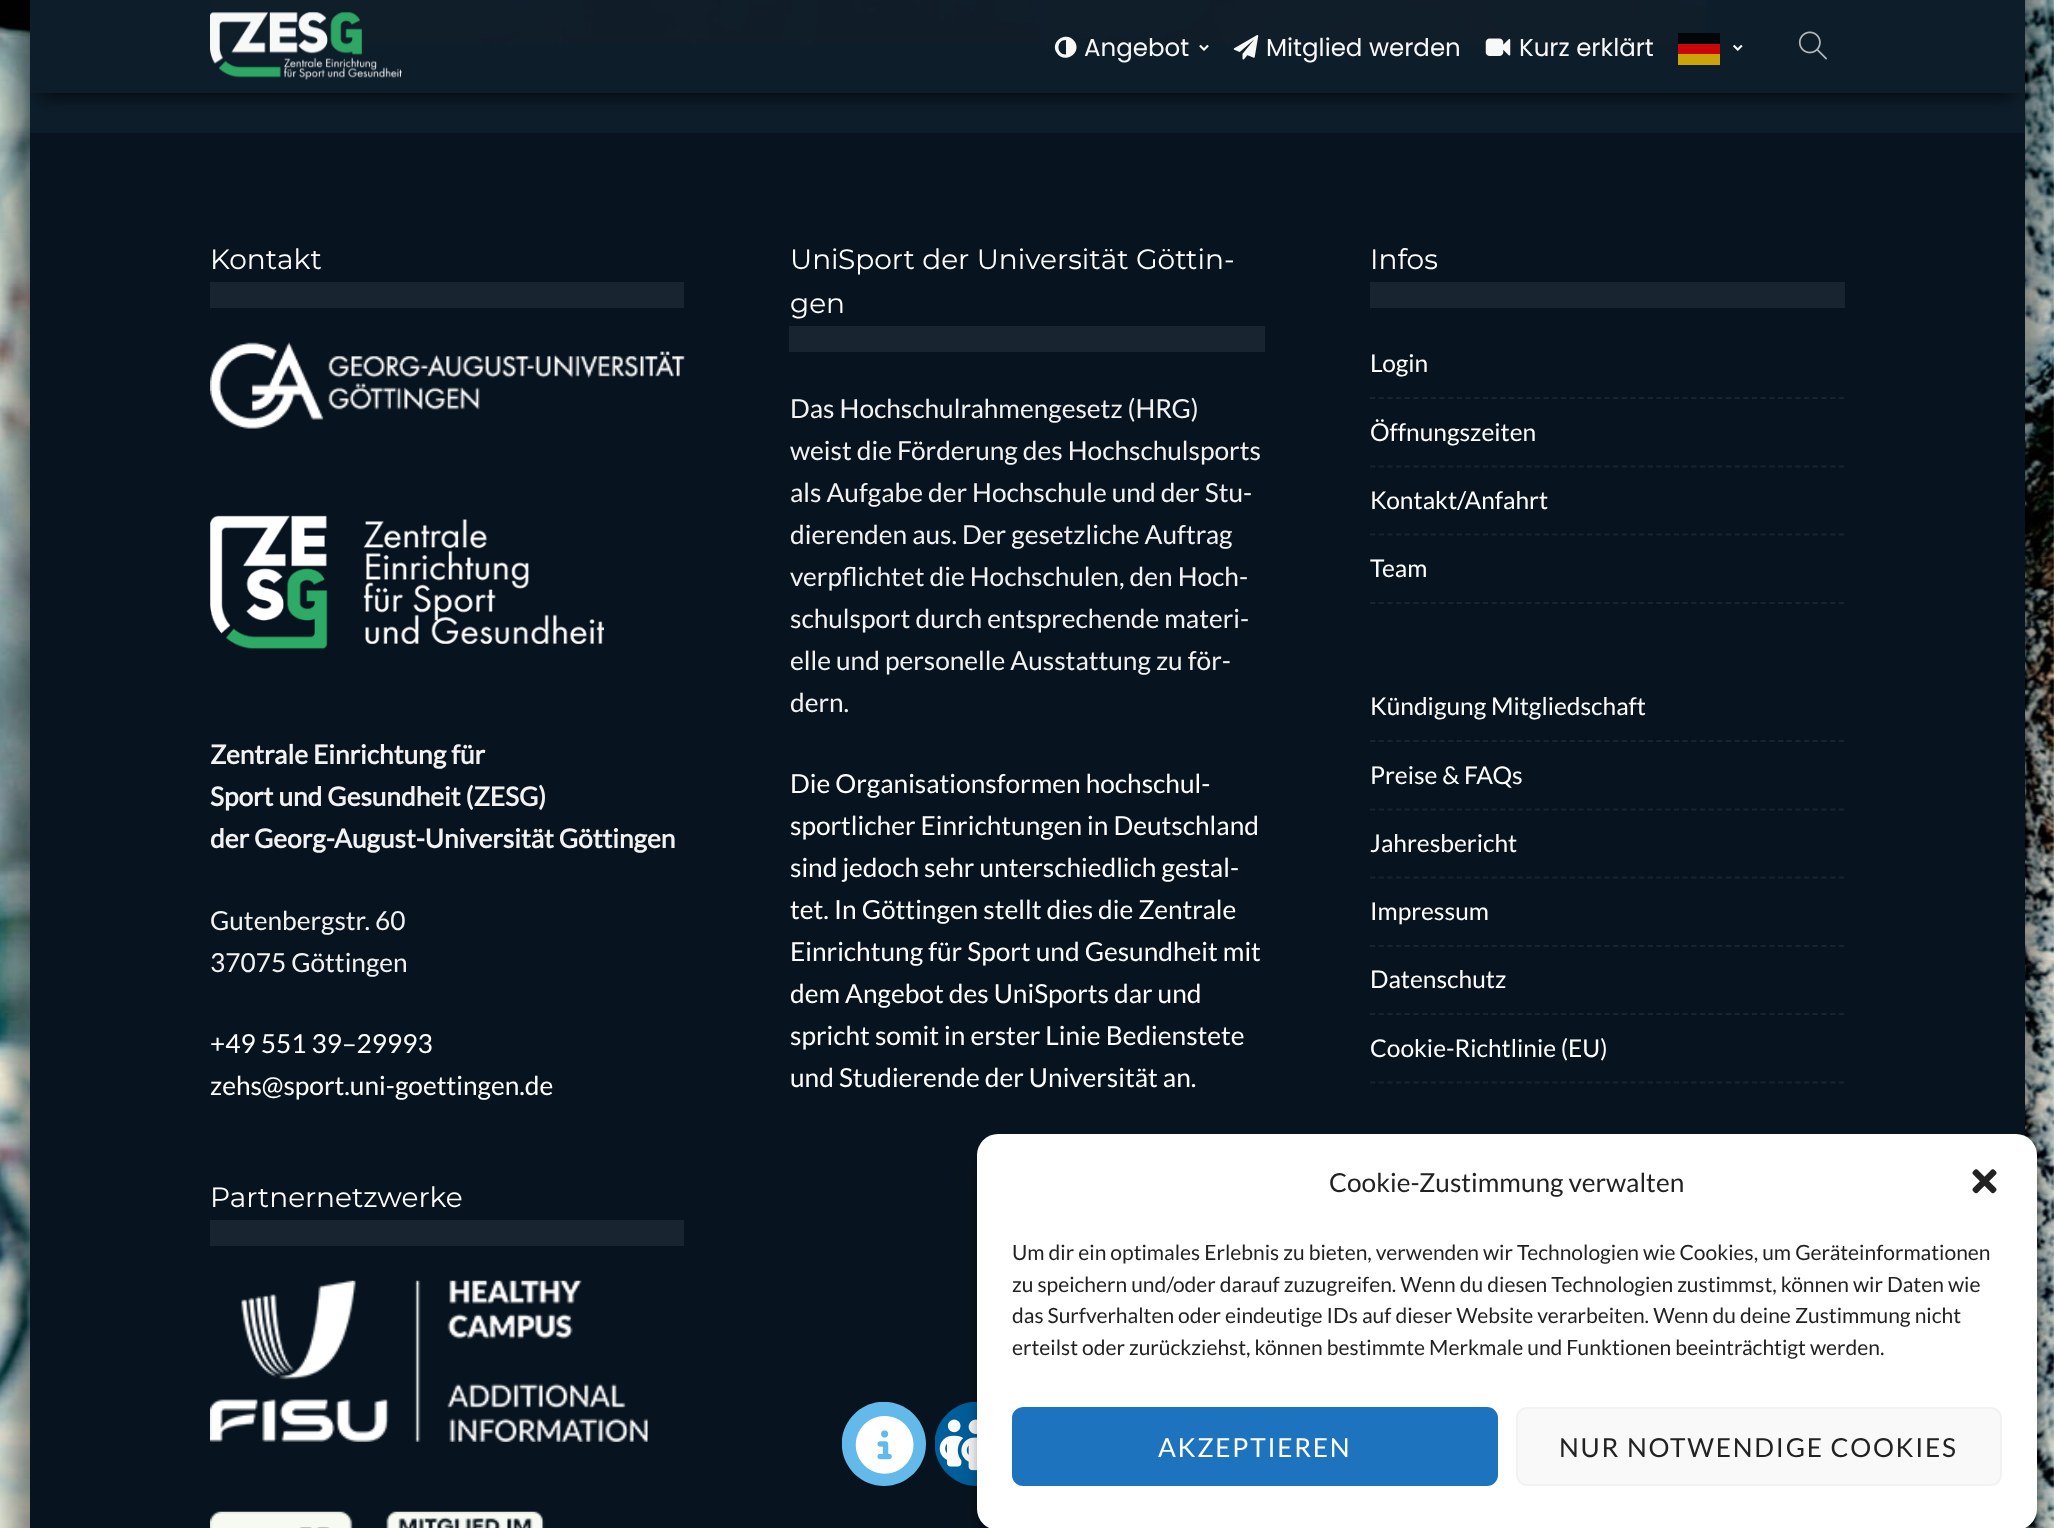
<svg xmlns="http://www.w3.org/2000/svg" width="2054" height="1528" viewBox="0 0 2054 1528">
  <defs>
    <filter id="blur1" x="-50%" y="-200%" width="200%" height="500%"><feGaussianBlur stdDeviation="13"/></filter>
    <clipPath id="clip1"><path d="M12 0H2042V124H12ZM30 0H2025V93H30Z" clip-rule="evenodd"/></clipPath>
    <filter id="blur2" x="-50%" y="-200%" width="200%" height="500%"><feGaussianBlur stdDeviation="9"/></filter>
    <filter id="blur3" x="-50%" y="-200%" width="200%" height="500%"><feGaussianBlur stdDeviation="5"/></filter>
    <filter id="blur4" x="-50%" y="-200%" width="200%" height="500%"><feGaussianBlur stdDeviation="17.5"/></filter>
  </defs>
  <rect width="100%" height="100%" fill="#ffffff"/>
  <image x="0" y="0" width="2054" height="1528" href="img1.png"/>
  <rect x="12" y="-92" width="2030" height="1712" rx="53" fill="#000000" fill-opacity="0.4" filter="url(#blur1)"/>
  <rect x="30" y="0" width="1995" height="133" fill="#0d1d2a"/>
  <image x="210" y="0" width="1497" height="46" href="img8.png"/>
  <g clip-path="url(#clip1)">
    <rect x="40" y="25" width="1974" height="71" fill="#000000" fill-opacity="0.73" filter="url(#blur2)"/>
  </g>
  <rect x="41" y="0" width="1972" height="93" fill="#0d1d2a" fill-opacity="0.97"/>
  <image x="210" y="11" width="192" height="70" href="img2.png"/>
  <path d="M1066 54.5V40C1056 40 1056 54.5 1066 54.5ZM1075 42C1082 54 1063.5 64.5 1056.5 52.5C1049.5 40.5 1068 30 1075 42Z" fill="#ffffff" fill-opacity="0.97"/>
  <text x="1084" y="56" font-family="Poppins" font-size="24.5" fill="#f8f8f9">Angebot</text>
  <image x="1199" y="44" width="10" height="7" href="img3.png"/>
  <image x="1233" y="35" width="26" height="25" href="img4.png"/>
  <text x="1266" y="56" font-family="Poppins" font-size="24.5" fill="#f8f8f9">Mitglied werden</text>
  <image x="1485" y="38" width="26" height="18" href="img5.png"/>
  <text x="1519" y="56" font-family="Poppins" font-size="24.5" fill="#f8f8f9">Kurz erklärt</text>
  <rect x="1678" y="33" width="42" height="11" fill="#000000" fill-opacity="0.78"/>
  <rect x="1678" y="44" width="42" height="10" fill="#ff0000" fill-opacity="0.78"/>
  <image x="1733" y="44" width="10" height="7" href="img6.png"/>
  <rect x="1678" y="54" width="42" height="11" fill="#c9a509"/>
  <image x="1798" y="31" width="29" height="29" href="img7.png"/>
  <rect x="30" y="133" width="1995" height="1395" fill="#07141f"/>
  <rect x="210" y="282" width="474" height="26" fill="#18242f"/>
  <text x="210" y="269" font-family="Montserrat" font-size="28" fill="#ffffff">Kontakt</text>
  <image x="210" y="342" width="475" height="87" href="img9.png"/>
  <image x="210" y="515" width="394" height="134" href="img10.png"/>
  <text x="210" y="764" font-family="Lato" font-size="26.25" font-weight="bold" fill="#f2f2f2">Zentrale Einrichtung für</text>
  <text x="210" y="806" font-family="Lato" font-size="26.25" font-weight="bold" fill="#f2f2f2">Sport und Gesundheit (ZESG)</text>
  <text x="210" y="848" font-family="Lato" font-size="26.25" font-weight="bold" fill="#f2f2f2">der Georg-August-Universität Göttingen</text>
  <text x="210" y="930" font-family="Lato" font-size="26.25" fill="#f2f2f2">Gutenbergstr. 60</text>
  <text x="210" y="972" font-family="Lato" font-size="26.25" fill="#f2f2f2">37075 Göttingen</text>
  <text x="210" y="1053" font-family="Lato" font-size="26.25" fill="#ffffff">+49 551 39–29993</text>
  <text x="210" y="1095" font-family="Lato" font-size="26.25" fill="#ffffff">zehs@sport.uni-goettingen.de</text>
  <rect x="210" y="1220" width="474" height="26" fill="#18242f"/>
  <text x="210" y="1207" font-family="Montserrat" font-size="28" fill="#ffffff">Partnernetzwerke</text>
  <image x="210" y="1280" width="438" height="162" href="img11.png"/>
  <image x="210" y="1511" width="335" height="17" href="img12.png"/>
  <rect x="789" y="326" width="476" height="26" fill="#18242f"/>
  <text x="790" y="269" font-family="Montserrat" font-size="28" fill="#ffffff">UniSport der Universität Göttin-</text>
  <text x="790" y="313" font-family="Montserrat" font-size="28" fill="#ffffff">gen</text>
  <text x="790" y="418" font-family="Lato" font-size="26.25" fill="#f2f2f2">Das Hochschulrahmengesetz (HRG)</text>
  <text x="790" y="460" font-family="Lato" font-size="26.25" fill="#f2f2f2">weist die Förderung des Hochschulsports</text>
  <text x="790" y="502" font-family="Lato" font-size="26.25" fill="#f2f2f2">als Aufgabe der Hochschule und der Stu-</text>
  <text x="790" y="544" font-family="Lato" font-size="26.25" fill="#f2f2f2">dierenden aus. Der gesetzliche Auftrag</text>
  <text x="790" y="586" font-family="Lato" font-size="26.25" fill="#f2f2f2">verpflichtet die Hochschulen, den Hoch-</text>
  <text x="790" y="628" font-family="Lato" font-size="26.25" fill="#f2f2f2">schulsport durch entsprechende materi-</text>
  <text x="790" y="670" font-family="Lato" font-size="26.25" fill="#f2f2f2">elle und personelle Ausstattung zu för-</text>
  <text x="790" y="712" font-family="Lato" font-size="26.25" fill="#f2f2f2">dern.</text>
  <text x="790" y="793" font-family="Lato" font-size="26.25" fill="#ffffff">Die Organisationsformen hochschul-</text>
  <text x="790" y="835" font-family="Lato" font-size="26.25" fill="#ffffff">sportlicher Einrichtungen in Deutschland</text>
  <text x="790" y="877" font-family="Lato" font-size="26.25" fill="#ffffff">sind jedoch sehr unterschiedlich gestal-</text>
  <text x="790" y="919" font-family="Lato" font-size="26.25" fill="#ffffff">tet. In Göttingen stellt dies die Zentrale</text>
  <text x="790" y="961" font-family="Lato" font-size="26.25" fill="#ffffff">Einrichtung für Sport und Gesundheit mit</text>
  <text x="790" y="1003" font-family="Lato" font-size="26.25" fill="#ffffff">dem Angebot des UniSports dar und</text>
  <text x="790" y="1045" font-family="Lato" font-size="26.25" fill="#ffffff">spricht somit in erster Linie Bedienstete</text>
  <text x="790" y="1087" font-family="Lato" font-size="26.25" fill="#ffffff">und Studierende der Universität an.</text>
  <rect x="1370" y="282" width="475" height="26" fill="#18242f"/>
  <text x="1370" y="269" font-family="Montserrat" font-size="28" fill="#ffffff">Infos</text>
  <path d="M1370 398H1844.5" fill="none" stroke="#18242f" stroke-width="1.8" stroke-dasharray="5.25 3.43"/>
  <text x="1370" y="372" font-family="Lato" font-size="24.5" fill="#ffffff">Login</text>
  <path d="M1370 466.5H1844.5" fill="none" stroke="#18242f" stroke-width="1.8" stroke-dasharray="5.25 3.43"/>
  <text x="1370" y="441" font-family="Lato" font-size="24.5" fill="#ffffff">Öffnungszeiten</text>
  <path d="M1370 534.5H1844.5" fill="none" stroke="#18242f" stroke-width="1.8" stroke-dasharray="5.25 3.43"/>
  <text x="1370" y="509" font-family="Lato" font-size="24.5" fill="#ffffff">Kontakt/Anfahrt</text>
  <path d="M1370 603H1844.5" fill="none" stroke="#18242f" stroke-width="1.8" stroke-dasharray="5.25 3.43"/>
  <text x="1370" y="577" font-family="Lato" font-size="24.5" fill="#ffffff">Team</text>
  <path d="M1370 741H1844.5" fill="none" stroke="#18242f" stroke-width="1.8" stroke-dasharray="5.25 3.43"/>
  <text x="1370" y="715" font-family="Lato" font-size="24.5" fill="#ffffff">Kündigung Mitgliedschaft</text>
  <path d="M1370 809.5H1844.5" fill="none" stroke="#18242f" stroke-width="1.8" stroke-dasharray="5.25 3.43"/>
  <text x="1370" y="784" font-family="Lato" font-size="24.5" fill="#ffffff">Preise &amp; FAQs</text>
  <path d="M1370 877.5H1844.5" fill="none" stroke="#18242f" stroke-width="1.8" stroke-dasharray="5.25 3.43"/>
  <text x="1370" y="852" font-family="Lato" font-size="24.5" fill="#ffffff">Jahresbericht</text>
  <path d="M1370 946H1844.5" fill="none" stroke="#18242f" stroke-width="1.8" stroke-dasharray="5.25 3.43"/>
  <text x="1370" y="920" font-family="Lato" font-size="24.5" fill="#ffffff">Impressum</text>
  <path d="M1370 1014H1844.5" fill="none" stroke="#18242f" stroke-width="1.8" stroke-dasharray="5.25 3.43"/>
  <text x="1370" y="988" font-family="Lato" font-size="24.5" fill="#ffffff">Datenschutz</text>
  <path d="M1370 1082.5H1844.5" fill="none" stroke="#18242f" stroke-width="1.8" stroke-dasharray="5.25 3.43"/>
  <text x="1370" y="1057" font-family="Lato" font-size="24.5" fill="#ffffff">Cookie-Richtlinie (EU)</text>
  <path d="M842 1439C844 1420 860 1404 879 1402H888C909 1404 926 1422 926 1444C926 1467 907 1486 884 1486C862 1486 844 1469 842 1448Z" fill="#63b9e9"/>
  <image x="855" y="1416" width="59" height="58" href="img13.png"/>
  <path d="M935 1437C938 1419 953 1404 972 1402H981C1002 1404 1018 1422 1018 1444C1018 1467 1000 1486 976 1486C956 1486 938 1470 935 1450Z" fill="#00609c"/>
  <image x="939" y="1419" width="38" height="52" href="img14.png"/>
  <rect x="977" y="1145" width="1060" height="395" rx="21" fill="#000000" fill-opacity="0.23" filter="url(#blur3)"/>
  <rect x="977" y="1152" width="1060" height="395" rx="21" fill="#000000" fill-opacity="0.19" filter="url(#blur4)"/>
  <rect x="977" y="1134" width="1060" height="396" rx="21" fill="#ffffff"/>
  <text x="1329" y="1192" font-family="Lato" font-size="26.25" fill="#222222">Cookie-Zustimmung verwalten</text>
  <image x="1972" y="1169" width="25" height="25" href="img15.png"/>
  <text x="1012" y="1260" font-family="Lato" font-size="21" fill="#222222">Um dir ein optimales Erlebnis zu bieten, verwenden wir Technologien wie Cookies, um Geräteinformationen</text>
  <text x="1012" y="1292" font-family="Lato" font-size="21" fill="#222222">zu speichern und/oder darauf zuzugreifen. Wenn du diesen Technologien zustimmst, können wir Daten wie</text>
  <text x="1012" y="1323" font-family="Lato" font-size="21" fill="#222222">das Surfverhalten oder eindeutige IDs auf dieser Website verarbeiten. Wenn du deine Zustimmung nicht</text>
  <text x="1012" y="1355" font-family="Lato" font-size="21" fill="#222222">erteilst oder zurückziehst, können bestimmte Merkmale und Funktionen beeinträchtigt werden.</text>
  <rect x="1013" y="1408" width="484" height="77" rx="10" fill="#1e73be" stroke="#1e73be" stroke-width="2"/>
  <text x="1158" y="1457" font-family="Lato" font-size="26.25" letter-spacing="1.75" fill="#ffffff">AKZEPTIEREN</text>
  <rect x="1517" y="1408" width="484" height="77" rx="10" fill="#f9f9f9" stroke="#f2f2f2" stroke-width="2"/>
  <text x="1559" y="1457" font-family="Lato" font-size="26.25" letter-spacing="1.75" fill="#222222">NUR NOTWENDIGE COOKIES</text>
</svg>
